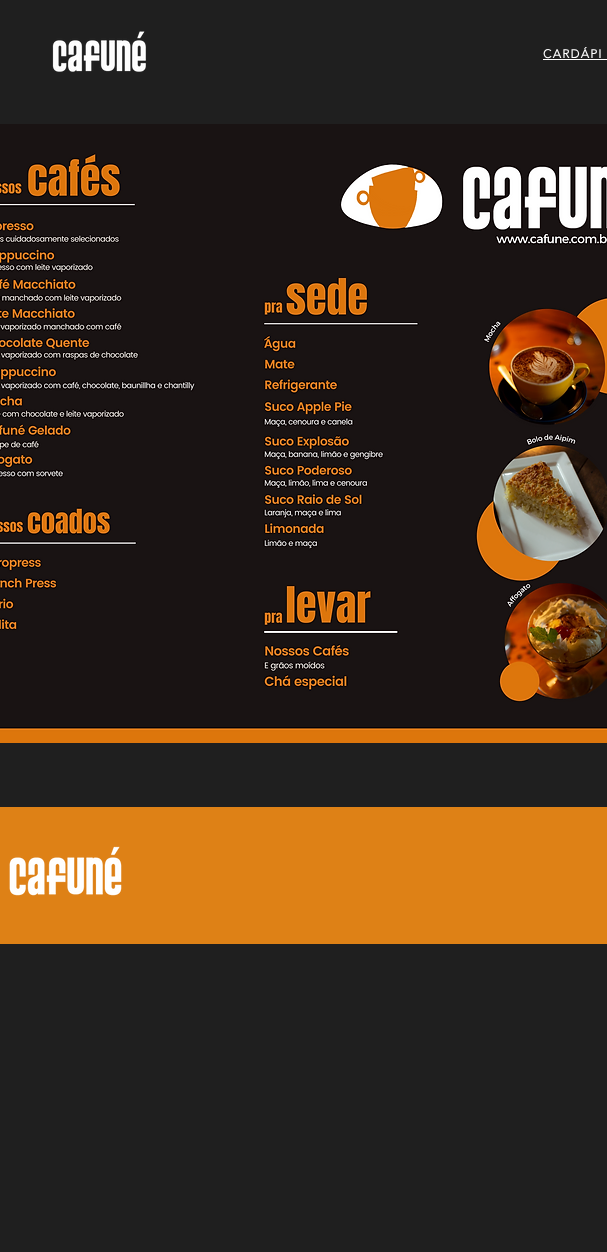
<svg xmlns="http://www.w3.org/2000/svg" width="607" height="1252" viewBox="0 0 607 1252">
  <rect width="100%" height="100%" fill="#1f1f1f"/>
  <image x="52" y="31" width="94" height="41" href="img1.png"/>
  <text x="543" y="58" font-family="'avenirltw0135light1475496'" font-size="12" font-weight="bold" letter-spacing="1.25" fill="#ffffff">CARDÁPI</text>
  <rect x="543" y="59" width="64" height="1" fill="#ffffff"/>
  <image x="0" y="124" width="607" height="619" href="img2.png"/>
  <rect x="0" y="807" width="607" height="137" fill="#de8116"/>
  <image x="9" y="846" width="113" height="50" href="img3.png"/>
</svg>
